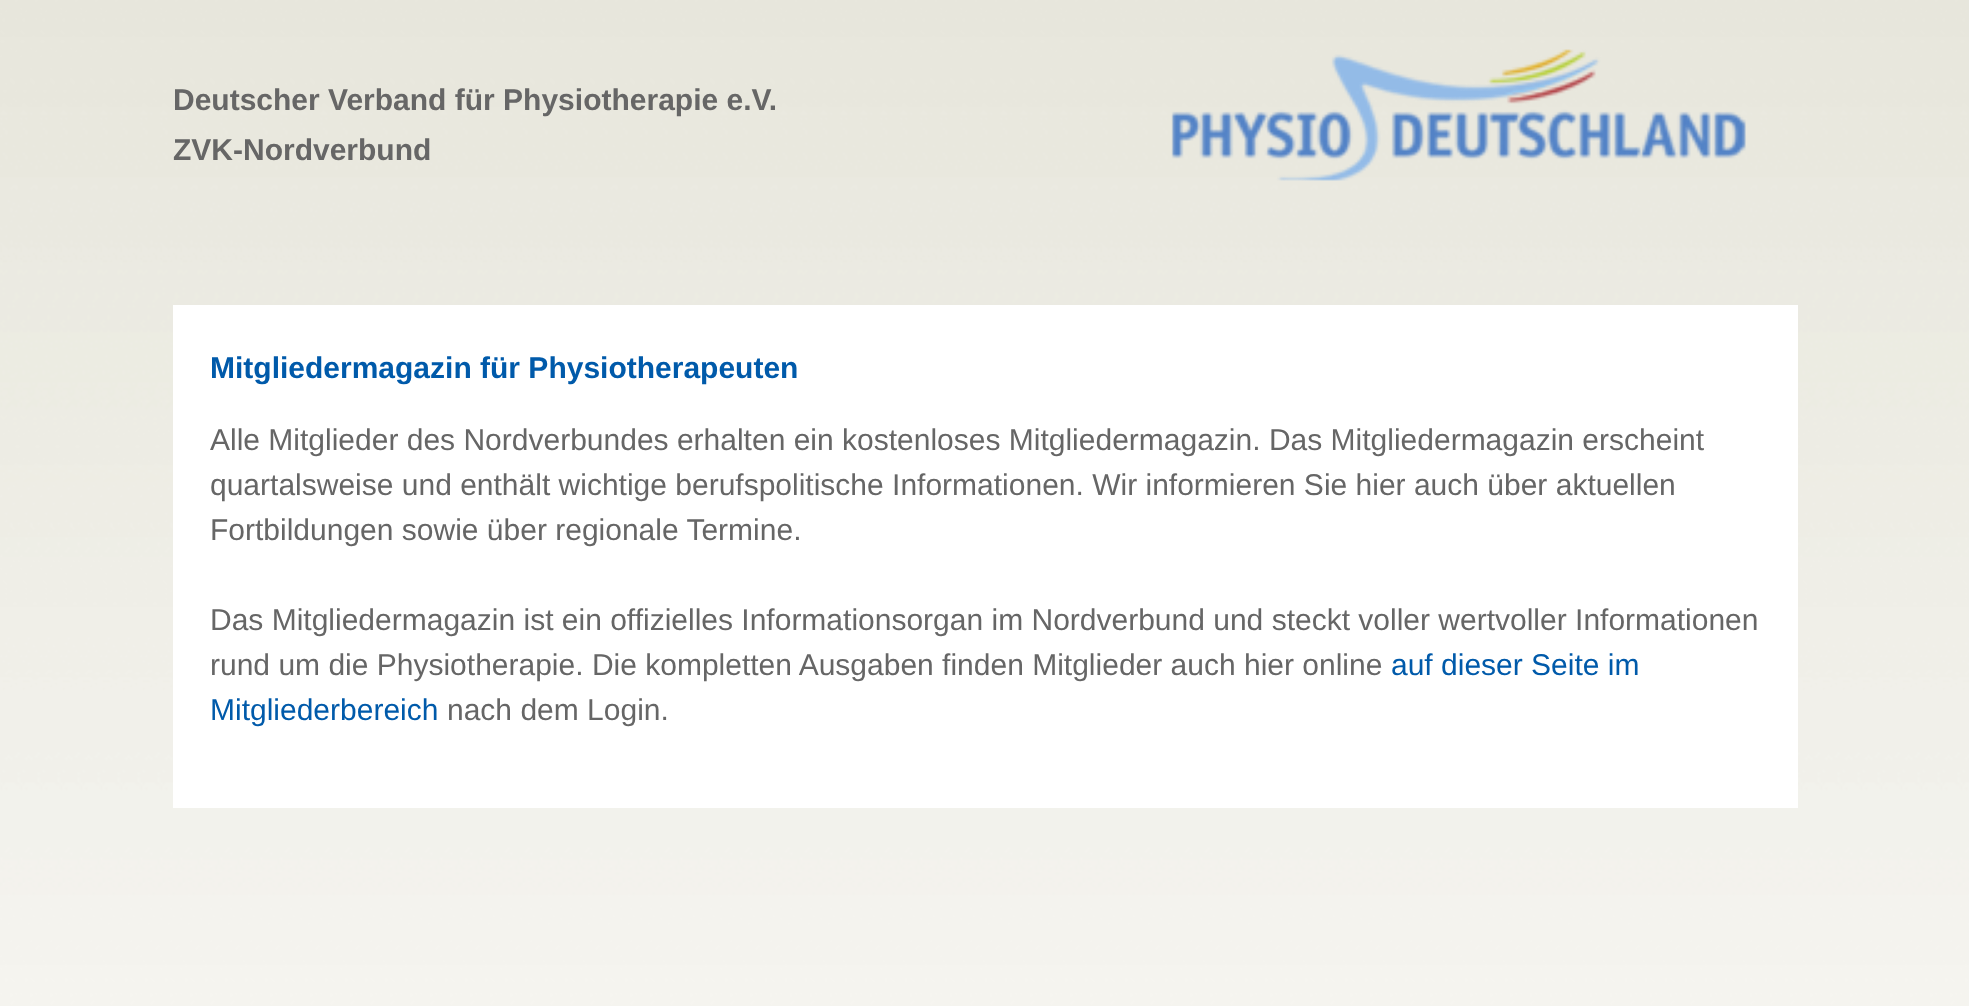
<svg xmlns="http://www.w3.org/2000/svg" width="1969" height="1006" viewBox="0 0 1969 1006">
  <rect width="100%" height="100%" fill="#ffffff"/>
  <image x="0" y="0" width="1969" height="1006" href="img1.png"/>
  <text x="173" y="110" font-family="Liberation Sans" font-size="30" font-weight="bold" fill="#666666">Deutscher Verband für Physiotherapie e.V.</text>
  <text x="173" y="160" font-family="Liberation Sans" font-size="30" font-weight="bold" fill="#666666">ZVK-Nordverbund</text>
  <image x="1171" y="49" width="575" height="132" href="img2.png"/>
  <rect x="173" y="305" width="1625" height="503" fill="#ffffff"/>
  <text x="210" y="378" font-family="Liberation Sans" font-size="30" font-weight="bold" fill="#005aaa">Mitgliedermagazin für Physiotherapeuten</text>
  <text x="210" y="450" font-family="Liberation Sans" font-size="30" fill="#666666">Alle Mitglieder des Nordverbundes erhalten ein kostenloses Mitgliedermagazin. Das Mitgliedermagazin erscheint</text>
  <text x="210" y="495" font-family="Liberation Sans" font-size="30" fill="#666666">quartalsweise und enthält wichtige berufspolitische Informationen. Wir informieren Sie hier auch über aktuellen</text>
  <text x="210" y="540" font-family="Liberation Sans" font-size="30" fill="#666666">Fortbildungen sowie über regionale Termine.</text>
  <text x="210" y="630" font-family="Liberation Sans" font-size="30" fill="#666666">Das Mitgliedermagazin ist ein offizielles Informationsorgan im Nordverbund und steckt voller wertvoller Informationen</text>
  <text x="210" y="675" font-family="Liberation Sans" font-size="30" fill="#666666">rund um die Physiotherapie. Die kompletten Ausgaben finden Mitglieder auch hier online</text>
  <text x="1391" y="675" font-family="Liberation Sans" font-size="30" fill="#005aaa">auf dieser Seite im</text>
  <text x="210" y="720" font-family="Liberation Sans" font-size="30" fill="#005aaa">Mitgliederbereich</text>
  <text x="447" y="720" font-family="Liberation Sans" font-size="30" fill="#666666">nach dem Login.</text>
</svg>
